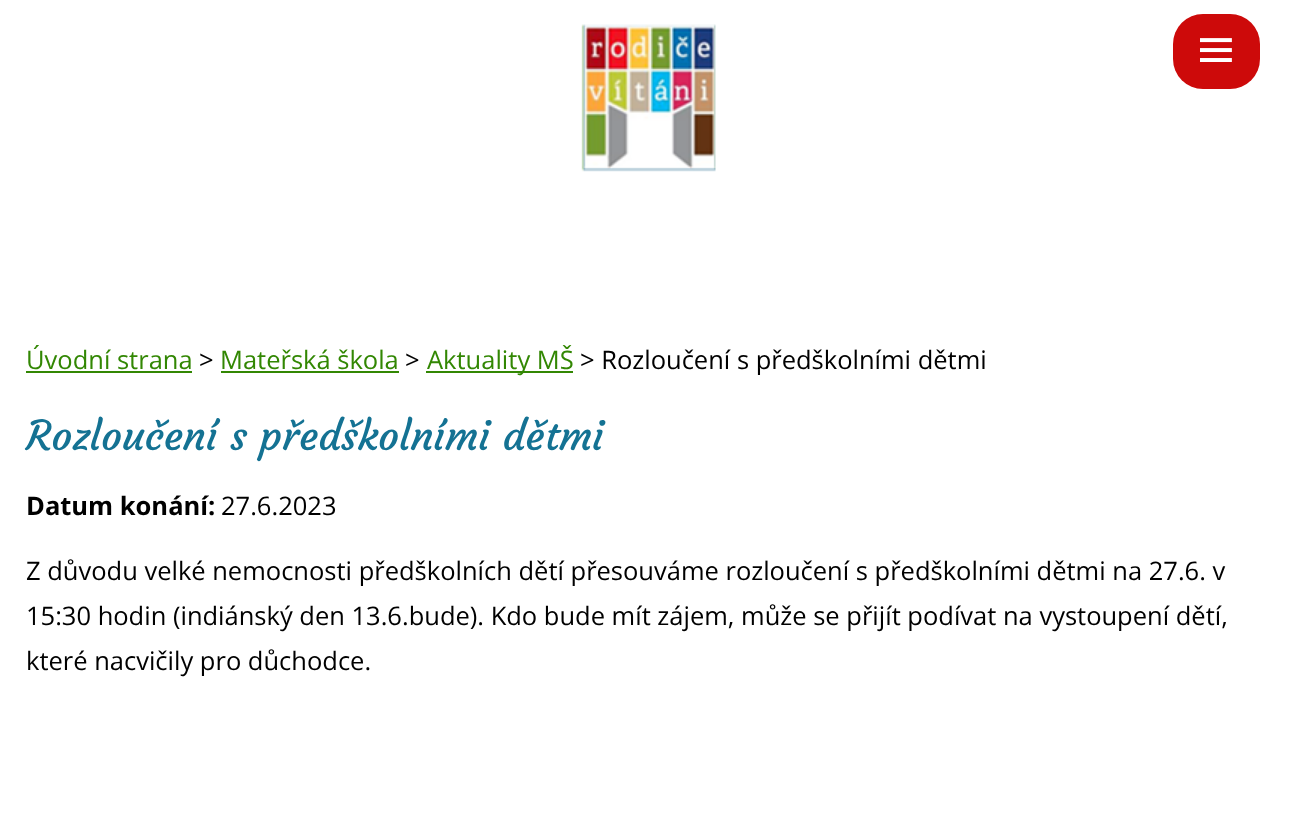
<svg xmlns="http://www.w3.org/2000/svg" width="1290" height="817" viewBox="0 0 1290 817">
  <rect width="100%" height="100%" fill="#ffffff"/>
  <image x="581" y="24" width="135" height="148" href="img1.png"/>
  <rect x="1173" y="14" width="87" height="75" rx="30" fill="#cd0a0a"/>
  <image x="1200" y="38" width="32" height="24" href="img2.png"/>
  <text x="26" y="369" font-family="Open Sans" font-size="25.5" fill="#328703">Úvodní strana</text>
  <rect x="26" y="371" width="166" height="2" fill="#328703"/>
  <text x="199" y="369" font-family="Open Sans" font-size="25.5" fill="#000000">&gt;</text>
  <text x="220" y="369" font-family="Open Sans" font-size="25.5" fill="#328703">Mateřská škola</text>
  <rect x="221" y="371" width="178" height="2" fill="#328703"/>
  <text x="405" y="369" font-family="Open Sans" font-size="25.5" fill="#000000">&gt;</text>
  <rect x="426" y="371" width="147" height="2" fill="#328703"/>
  <text x="427" y="369" font-family="Open Sans" font-size="25.5" fill="#328703">Aktuality MŠ</text>
  <text x="580" y="369" font-family="Open Sans" font-size="25.5" fill="#000000">&gt; Rozloučení s předškolními dětmi</text>
  <text x="26" y="450" font-family="Courgette" font-size="40.75" fill="#147293">Rozloučení s předškolními dětmi</text>
  <text x="26" y="515" font-family="Open Sans" font-size="25.5" font-weight="bold" fill="#000000">Datum konání:</text>
  <text x="221" y="515" font-family="Open Sans" font-size="25.5" fill="#000000">27.6.2023</text>
  <text x="26" y="580" font-family="Open Sans" font-size="25.5" fill="#000000">Z důvodu velké nemocnosti předškolních dětí přesouváme rozloučení s předškolními dětmi na 27.6. v</text>
  <text x="26" y="625" font-family="Open Sans" font-size="25.5" fill="#000000">15:30 hodin (indiánský den 13.6.bude). Kdo bude mít zájem, může se přijít podívat na vystoupení dětí,</text>
  <text x="26" y="670" font-family="Open Sans" font-size="25.5" fill="#000000">které nacvičily pro důchodce.</text>
</svg>
